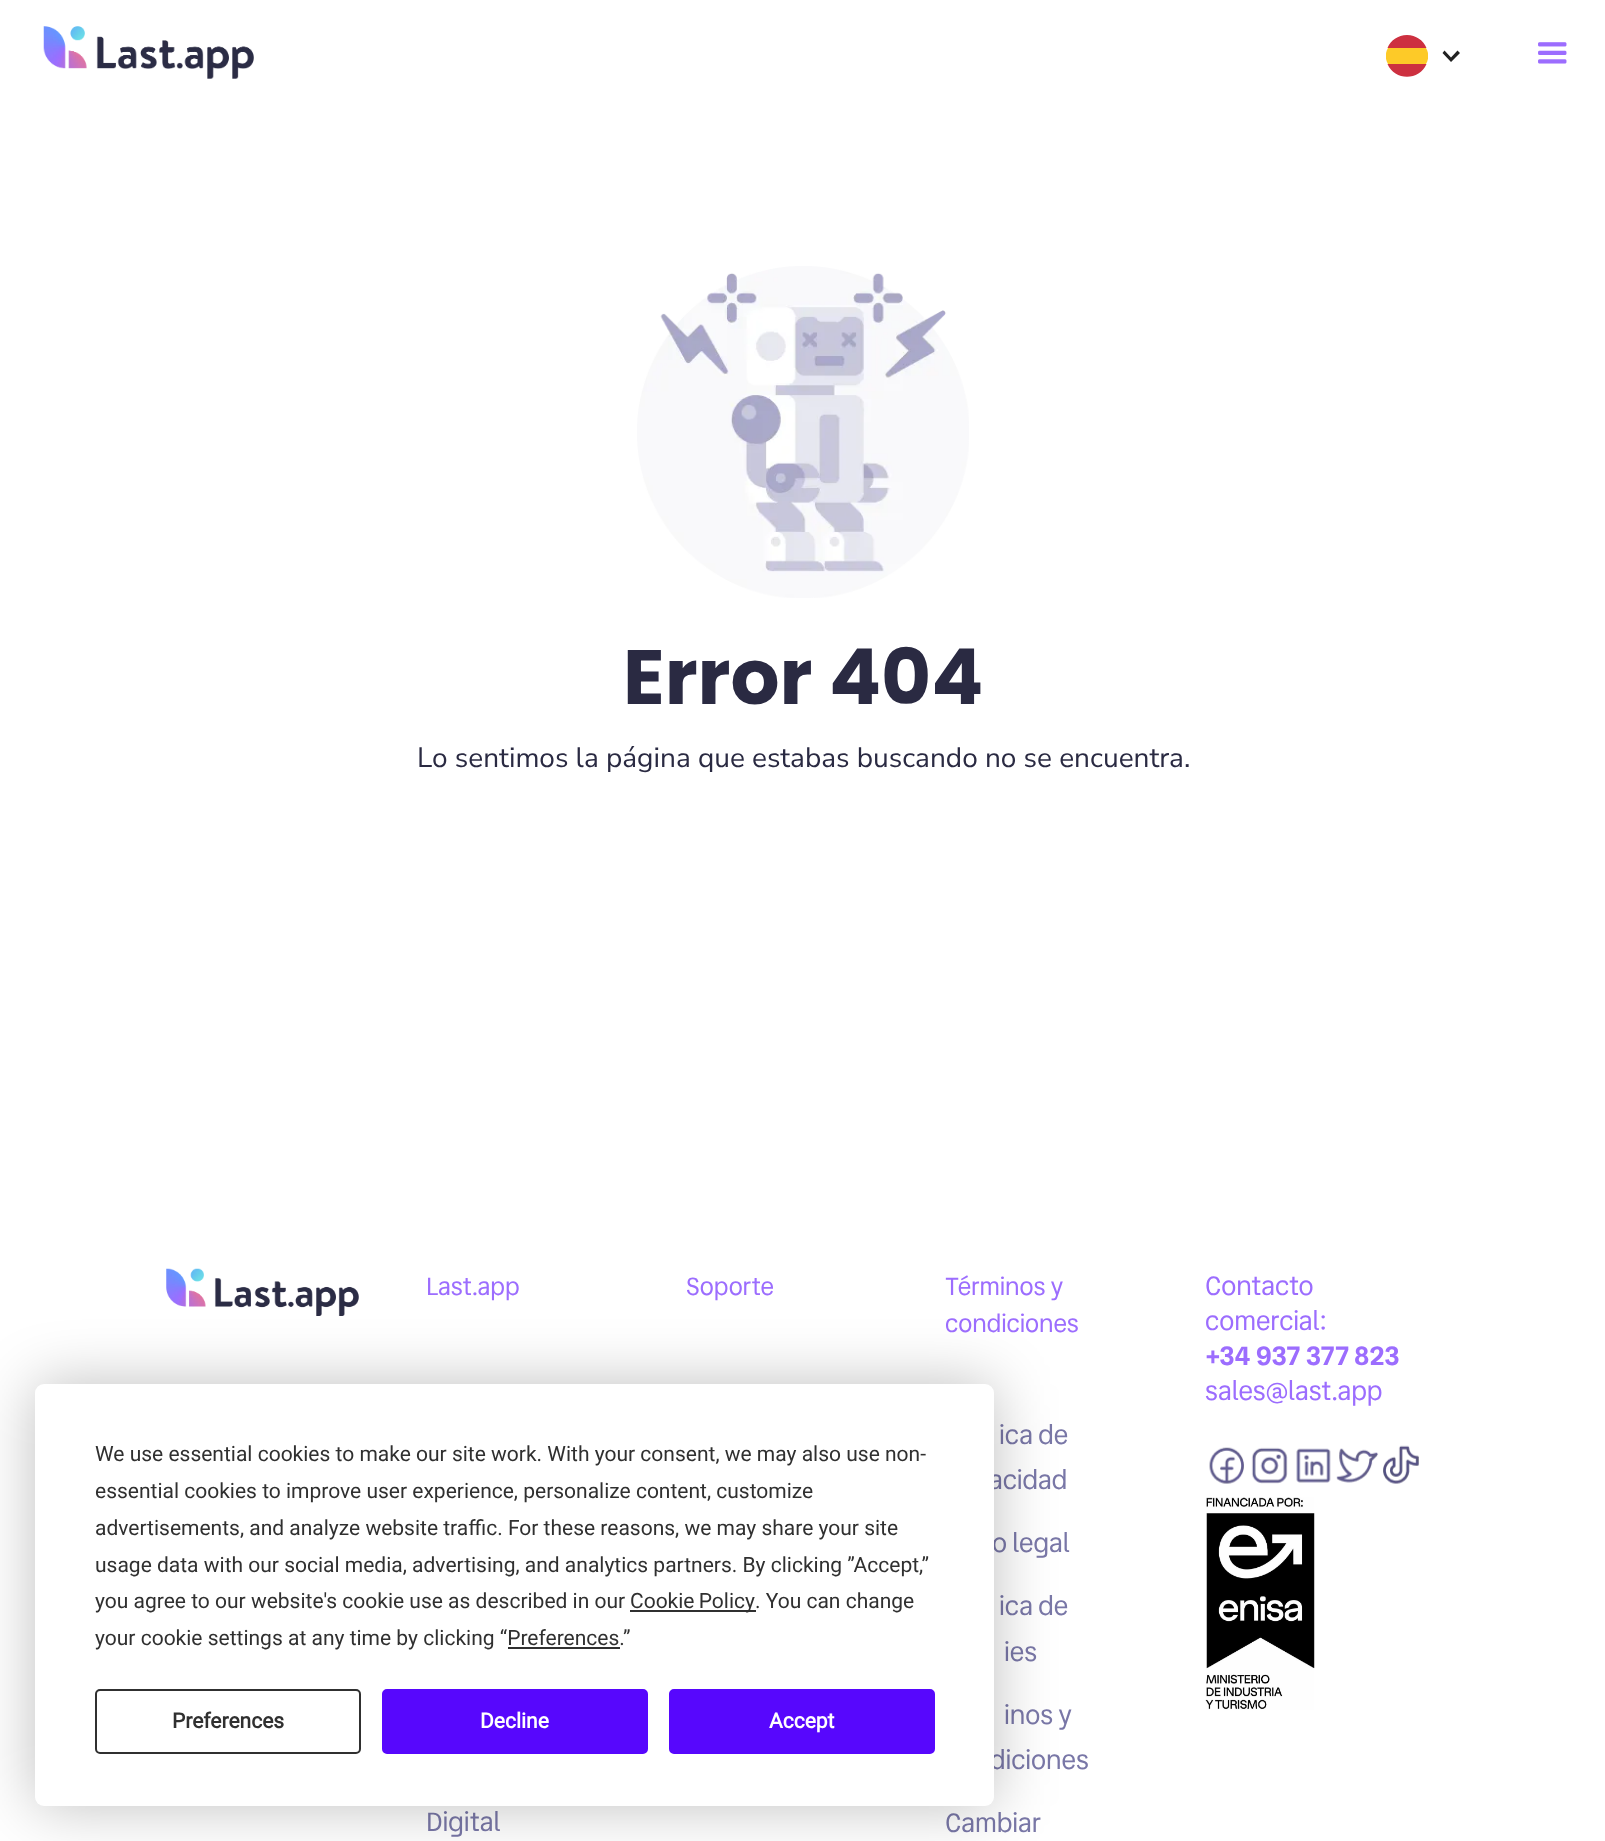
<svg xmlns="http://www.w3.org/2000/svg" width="1605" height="1841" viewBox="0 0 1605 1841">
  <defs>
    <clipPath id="clip1"><rect x="1386" y="35" width="42" height="42"/></clipPath>
    <filter id="blur1" x="-50%" y="-200%" width="200%" height="500%"><feGaussianBlur stdDeviation="30.5"/></filter>
  </defs>
  <rect width="100%" height="100%" fill="#ffffff"/>
  <image x="43" y="26" width="211" height="53" href="img1.png"/>
  <path d="M1407 35C1416 35 1423.5 40.5 1426.5 48H1387.5C1390.5 40.5 1398 35 1407 35ZM1426.5 64C1419.5 81 1394.5 81 1387.5 64Z" fill="#cd3040"/>
  <g clip-path="url(#clip1)">
    <path d="M1388 64C1385 59 1385 53 1388 48H1426C1429 53 1429 59 1426 64Z" fill="#fdca28"/>
  </g>
  <path d="M1457.5 50.5L1451 57.5L1444.5 50.5L1442.5 53L1451 62L1460 53Z" fill="#222222"/>
  <image x="1538" y="42" width="29" height="22" href="img2.png"/>
  <image x="637" y="266" width="332" height="332" href="img3.png"/>
  <text x="623" y="704" font-family="Poppins" font-size="77" font-weight="bold" fill="#2a2a42">Error 404</text>
  <text x="417" y="767" font-family="Nunito Sans" font-size="28" fill="#2a2a42">Lo sentimos la página que estabas buscando no se encuentra.</text>
  <image x="166" y="1268" width="193" height="48" href="img4.png"/>
  <text x="426" y="1295" font-family="Vend Sans" font-size="24.5" fill="#9c6dfe">Last.app</text>
  <text x="426" y="1831" font-family="Vend Sans" font-size="26.25" fill="#7977a7">Digital</text>
  <text x="686" y="1295" font-family="Vend Sans" font-size="24.5" fill="#9c6dfe">Soporte</text>
  <text x="945" y="1295" font-family="Vend Sans" font-size="24.5" fill="#9c6dfe">Términos y</text>
  <text x="945" y="1332" font-family="Vend Sans" font-size="24.5" fill="#9c6dfe">condiciones</text>
  <text x="999" y="1444" font-family="Vend Sans" font-size="26.25" fill="#7977a7">ica de</text>
  <text x="989" y="1489" font-family="Vend Sans" font-size="26.25" fill="#7977a7">acidad</text>
  <text x="992" y="1552" font-family="Vend Sans" font-size="26.25" fill="#7977a7">o legal</text>
  <text x="999" y="1615" font-family="Vend Sans" font-size="26.25" fill="#7977a7">ica de</text>
  <text x="1004" y="1661" font-family="Vend Sans" font-size="26.25" fill="#7977a7">ies</text>
  <text x="1004" y="1724" font-family="Vend Sans" font-size="26.25" fill="#7977a7">inos y</text>
  <text x="990" y="1769" font-family="Vend Sans" font-size="26.25" fill="#7977a7">diciones</text>
  <text x="945" y="1832" font-family="Vend Sans" font-size="26.25" fill="#7977a7">Cambiar</text>
  <text x="1205" y="1295" font-family="Vend Sans" font-size="26.25" fill="#9c6dfe">Contacto</text>
  <text x="1205" y="1330" font-family="Vend Sans" font-size="26.25" fill="#9c6dfe">comercial:</text>
  <text x="1205" y="1365" font-family="Vend Sans" font-size="26.25" font-weight="bold" fill="#9c6dfe">+34 937 377 823</text>
  <text x="1205" y="1400" font-family="Vend Sans" font-size="26.25" fill="#9c6dfe">sales@last.app</text>
  <image x="1209" y="1447" width="35" height="37" href="img5.png"/>
  <image x="1251" y="1447" width="37" height="37" href="img6.png"/>
  <image x="1296" y="1448" width="35" height="35" href="img7.png"/>
  <image x="1336" y="1448" width="43" height="35" href="img8.png"/>
  <image x="1383" y="1445" width="36" height="39" href="img9.png"/>
  <image x="1205" y="1497" width="110" height="213" href="img10.png"/>
  <rect x="35" y="1384" width="959" height="422" rx="9" fill="#000000" fill-opacity="0.25" filter="url(#blur1)"/>
  <rect x="35" y="1384" width="959" height="422" rx="9" fill="#ffffff"/>
  <text x="95" y="1461" font-family="Roboto" font-size="21" fill="#303030">We use essential cookies to make our site work. With your consent, we may also use non-</text>
  <text x="95" y="1498" font-family="Roboto" font-size="21" fill="#303030">essential cookies to improve user experience, personalize content, customize</text>
  <text x="95" y="1535" font-family="Roboto" font-size="21" fill="#303030">advertisements, and analyze website traffic. For these reasons, we may share your site</text>
  <text x="95" y="1572" font-family="Roboto" font-size="21" fill="#303030">usage data with our social media, advertising, and analytics partners. By clicking ”Accept,”</text>
  <text x="95" y="1608" font-family="Roboto" font-size="21" fill="#303030">you agree to our website's cookie use as described in our</text>
  <rect x="630" y="1610" width="126" height="2" fill="#303030"/>
  <text x="630" y="1608" word-spacing="-1" font-family="Roboto" font-size="21" fill="#303030">Cookie Policy</text>
  <text x="755" y="1608" font-family="Roboto" font-size="21" fill="#303030">. You can change</text>
  <text x="95" y="1645" font-family="Roboto" font-size="21" fill="#303030">your cookie settings at any time by clicking “Preferences.”</text>
  <rect x="508" y="1647" width="112" height="2" fill="#303030"/>
  <rect x="96" y="1690" width="264" height="63" rx="4" fill="none" stroke="#303030" stroke-width="2"/>
  <text x="172" y="1728" font-family="Roboto" font-size="21" font-weight="bold" fill="#303030">Preferences</text>
  <rect x="383" y="1690" width="264" height="63" rx="4" fill="#5707fd" stroke="#5707fd" stroke-width="2"/>
  <text x="480" y="1728" font-family="Roboto" font-size="21" font-weight="bold" fill="#ffffff">Decline</text>
  <rect x="670" y="1690" width="264" height="63" rx="4" fill="#5707fd" stroke="#5707fd" stroke-width="2"/>
  <text x="769" y="1728" font-family="Roboto" font-size="21" font-weight="bold" fill="#ffffff">Accept</text>
</svg>
